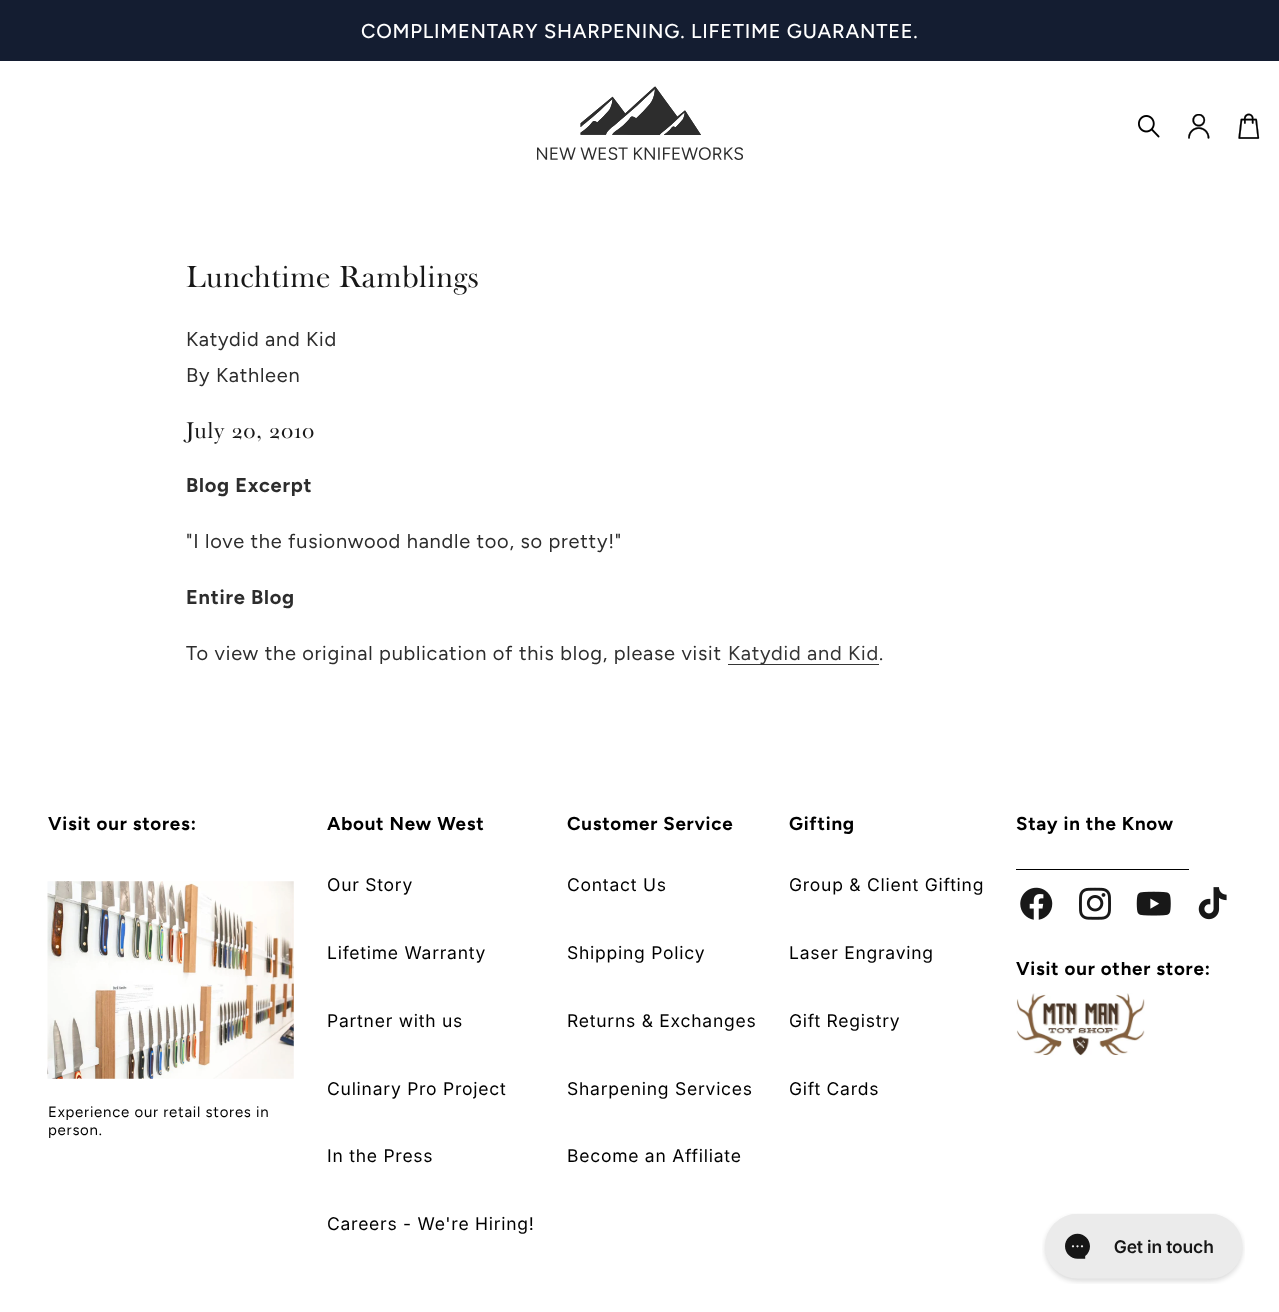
<svg xmlns="http://www.w3.org/2000/svg" width="1279" height="1312" viewBox="0 0 1279 1312">
  <rect width="100%" height="100%" fill="#ffffff"/>
  <rect x="0" y="0" width="1279" height="61" fill="#141d31"/>
  <text x="361" y="38" font-family="Figtree" font-size="20" font-weight="500" letter-spacing="0.75" fill="#ffffff">COMPLIMENTARY SHARPENING. LIFETIME GUARANTEE.</text>
  <image x="537" y="86" width="206" height="74" href="img1.png"/>
  <image x="1138" y="115" width="22" height="23" href="img2.png"/>
  <image x="1188" y="114" width="22" height="25" href="img3.png"/>
  <image x="1238" y="113" width="22" height="26" href="img4.png"/>
  <text x="186" y="287" font-family="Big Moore" font-size="30" letter-spacing="0.75" fill="#181818">Lunchtime Ramblings</text>
  <text x="186" y="346" font-family="Figtree" font-size="20" letter-spacing="0.75" fill="#2d2d2d">Katydid and Kid</text>
  <text x="186" y="382" font-family="Figtree" font-size="20" letter-spacing="0.75" fill="#2d2d2d">By Kathleen</text>
  <text x="186" y="438" font-family="Big Moore" font-size="22.5" letter-spacing="0.75" fill="#181818">July 20, 2010</text>
  <text x="186" y="492" font-family="Figtree" font-size="20" font-weight="bold" letter-spacing="0.75" fill="#2d2d2d">Blog Excerpt</text>
  <text x="186" y="548" font-family="Figtree" font-size="20" letter-spacing="0.75" fill="#2d2d2d">"I love the fusionwood handle too, so pretty!"</text>
  <text x="186" y="604" font-family="Figtree" font-size="20" font-weight="bold" letter-spacing="0.75" fill="#2d2d2d">Entire Blog</text>
  <text x="186" y="660" font-family="Figtree" font-size="20" letter-spacing="0.75" fill="#2d2d2d">To view the original publication of this blog, please visit</text>
  <rect x="728" y="664" width="151" height="1" fill="#363636"/>
  <text x="728" y="660" font-family="Figtree" font-size="20" letter-spacing="0.75" fill="#353535">Katydid and Kid</text>
  <text x="879" y="660" font-family="Figtree" font-size="20" letter-spacing="0.75" fill="#2d2d2d">.</text>
  <text x="48" y="830" font-family="Figtree" font-size="18.75" font-weight="bold" letter-spacing="0.75" fill="#000000">Visit our stores:</text>
  <image x="47" y="881" width="247" height="198" href="img5.png"/>
  <text x="48" y="1117" font-family="Figtree" font-size="15" letter-spacing="0.75" fill="#000000">Experience our retail stores in</text>
  <text x="48" y="1135" font-family="Figtree" font-size="15" letter-spacing="0.75" fill="#000000">person.</text>
  <text x="327" y="830" font-family="Figtree" font-size="18.75" font-weight="bold" letter-spacing="0.75" fill="#000000">About New West</text>
  <text x="327" y="891" font-family="Inter" font-size="17.5" letter-spacing="0.75" fill="#000000">Our Story</text>
  <text x="327" y="959" font-family="Inter" font-size="17.5" letter-spacing="0.75" fill="#000000">Lifetime Warranty</text>
  <text x="327" y="1027" font-family="Inter" font-size="17.5" letter-spacing="0.75" fill="#000000">Partner with us</text>
  <text x="327" y="1095" font-family="Inter" font-size="17.5" letter-spacing="0.75" fill="#000000">Culinary Pro Project</text>
  <text x="327" y="1162" font-family="Inter" font-size="17.5" letter-spacing="0.75" fill="#000000">In the Press</text>
  <text x="327" y="1230" font-family="Inter" font-size="17.5" letter-spacing="0.75" fill="#000000">Careers - We're Hiring!</text>
  <text x="567" y="830" font-family="Figtree" font-size="18.75" font-weight="bold" letter-spacing="0.75" fill="#000000">Customer Service</text>
  <text x="567" y="891" font-family="Inter" font-size="17.5" letter-spacing="0.75" fill="#000000">Contact Us</text>
  <text x="567" y="959" font-family="Inter" font-size="17.5" letter-spacing="0.75" fill="#000000">Shipping Policy</text>
  <text x="567" y="1027" font-family="Inter" font-size="17.5" letter-spacing="0.75" fill="#000000">Returns &amp; Exchanges</text>
  <text x="567" y="1095" font-family="Inter" font-size="17.5" letter-spacing="0.75" fill="#000000">Sharpening Services</text>
  <text x="567" y="1162" font-family="Inter" font-size="17.5" letter-spacing="0.75" fill="#000000">Become an Affiliate</text>
  <text x="789" y="830" font-family="Figtree" font-size="18.75" font-weight="bold" letter-spacing="0.75" fill="#000000">Gifting</text>
  <text x="789" y="891" font-family="Inter" font-size="17.5" letter-spacing="0.75" fill="#000000">Group &amp; Client Gifting</text>
  <text x="789" y="959" font-family="Inter" font-size="17.5" letter-spacing="0.75" fill="#000000">Laser Engraving</text>
  <text x="789" y="1027" font-family="Inter" font-size="17.5" letter-spacing="0.75" fill="#000000">Gift Registry</text>
  <text x="789" y="1095" font-family="Inter" font-size="17.5" letter-spacing="0.75" fill="#000000">Gift Cards</text>
  <text x="1016" y="830" font-family="Figtree" font-size="18.75" font-weight="bold" letter-spacing="0.75" fill="#000000">Stay in the Know</text>
  <rect x="1016" y="869" width="173" height="1" fill="#000000"/>
  <image x="1020" y="887" width="33" height="33" href="img6.png"/>
  <image x="1079" y="887" width="32" height="33" href="img7.png"/>
  <image x="1136" y="891" width="35" height="25" href="img8.png"/>
  <image x="1198" y="887" width="29" height="33" href="img9.png"/>
  <text x="1016" y="975" font-family="Figtree" font-size="18.75" font-weight="bold" letter-spacing="0.75" fill="#000000">Visit our other store:</text>
  <image x="1016" y="993" width="129" height="63" href="img10.png"/>
  <image x="1042" y="1213" width="203" height="71" href="img11.png"/>
</svg>
